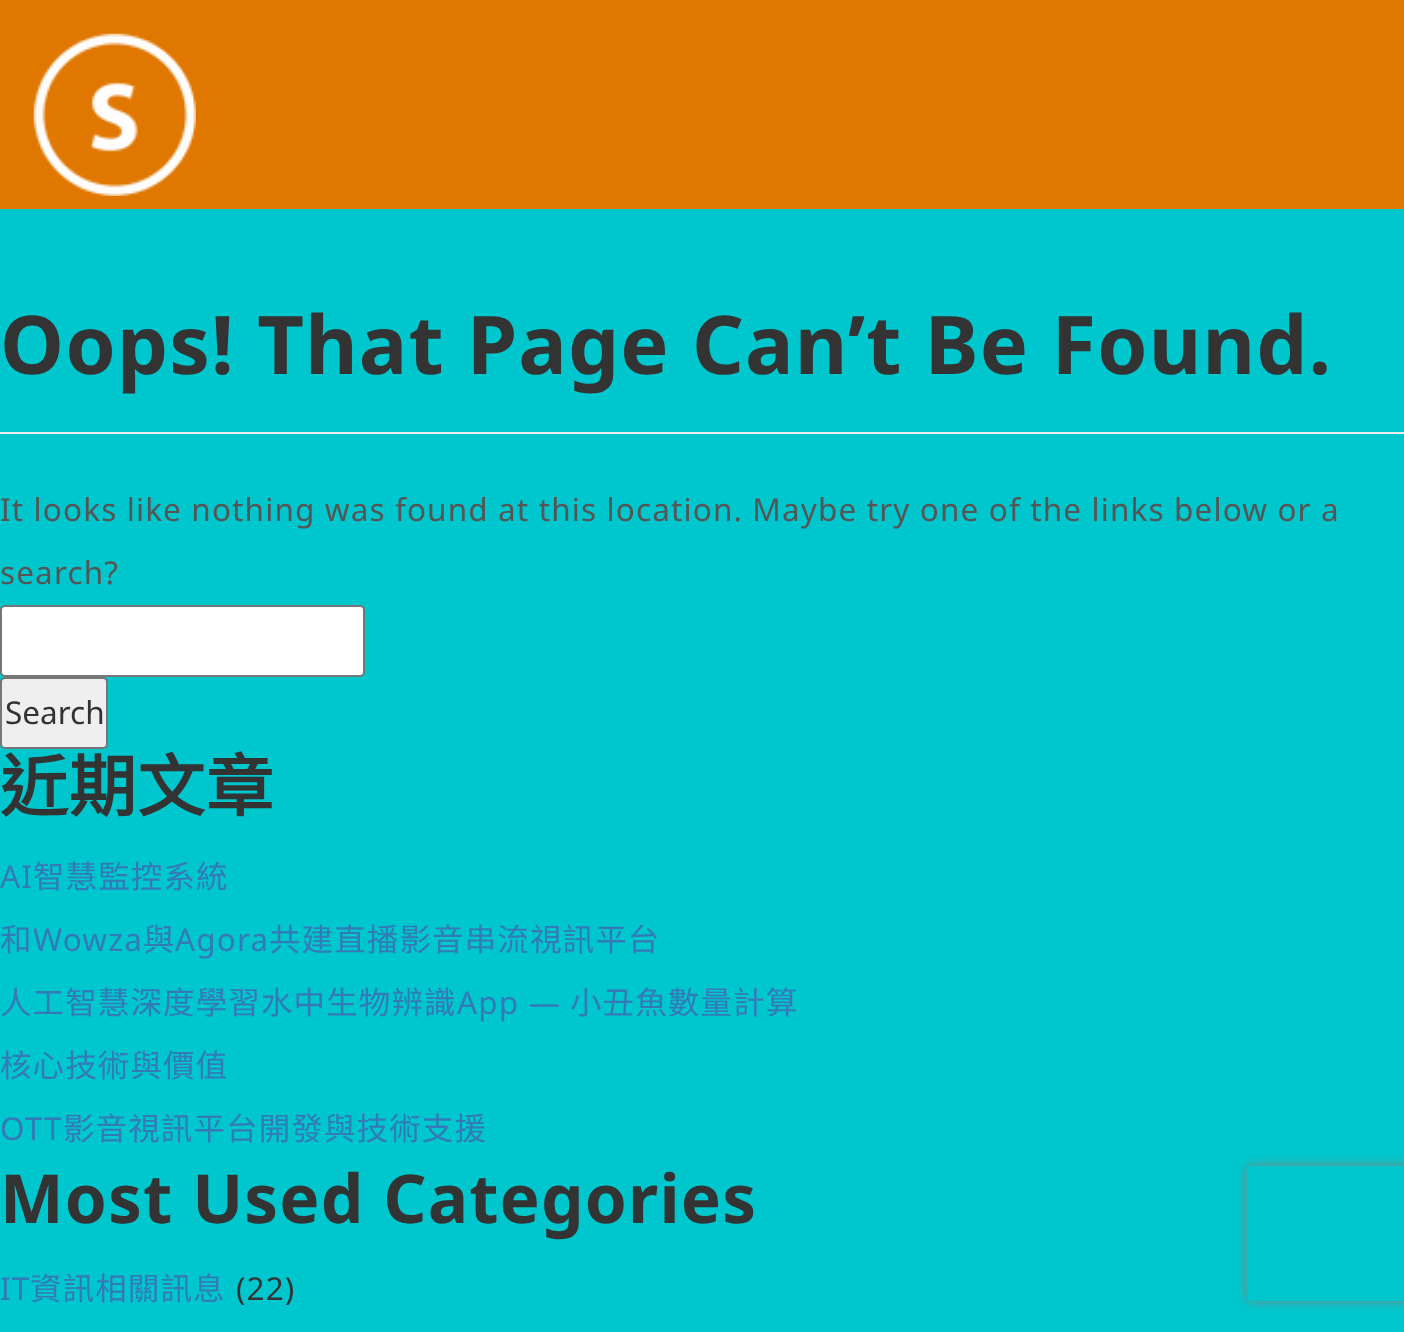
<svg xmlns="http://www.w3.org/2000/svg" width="1404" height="1332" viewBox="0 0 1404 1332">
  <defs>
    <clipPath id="clip1"><path d="M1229 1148H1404V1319H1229ZM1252 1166H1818C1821 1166 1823 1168 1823 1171V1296C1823 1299 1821 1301 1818 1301H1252C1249 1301 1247 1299 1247 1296V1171C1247 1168 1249 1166 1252 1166Z" clip-rule="evenodd"/></clipPath>
    <filter id="blur1" x="-50%" y="-200%" width="200%" height="500%"><feGaussianBlur stdDeviation="5.5"/></filter>
  </defs>
  <rect width="100%" height="100%" fill="#00c7ce"/>
  <rect x="0" y="0" width="1404" height="209" fill="#e07700"/>
  <image x="33" y="33" width="163" height="163" href="img1.png"/>
  <rect x="0" y="432" width="1404" height="2" fill="#eeeeee"/>
  <text x="0" y="374" font-family="Noto Sans" font-size="81" font-weight="bold" letter-spacing="1.12" fill="#333333">Oops! That Page Can’t Be Found.</text>
  <text x="0" y="521" font-family="Noto Sans" font-size="31.5" letter-spacing="1.12" fill="#555555">It looks like nothing was found at this location. Maybe try one of the links below or a</text>
  <text x="0" y="584" font-family="Noto Sans" font-size="31.5" letter-spacing="1.12" fill="#555555">search?</text>
  <rect x="1" y="606" width="363" height="70" rx="4" fill="#ffffff" stroke="#767676" stroke-width="2"/>
  <rect x="1" y="678" width="106" height="70" rx="4" fill="#efefef" stroke="#767676" stroke-width="2"/>
  <text x="5" y="724" font-family="Noto Sans" font-size="31.5" fill="#333333">Search</text>
  <text x="0" y="811" font-family="Noto Sans CJK TC" font-size="67.5" font-weight="bold" letter-spacing="1.12" fill="#333333">近期文章</text>
  <text x="0" y="888" font-family="Noto Sans" font-size="31.5" letter-spacing="1.12" fill="#337ab7">AI</text>
  <text x="33" y="888" font-family="Noto Sans CJK TC" font-size="31.5" letter-spacing="1.12" fill="#337ab7">智慧監控系統</text>
  <text x="0" y="951" font-family="Noto Sans CJK TC" font-size="31.5" letter-spacing="1.12" fill="#337ab7">和</text>
  <text x="33" y="951" font-family="Noto Sans" font-size="31.5" letter-spacing="1.12" fill="#337ab7">Wowza</text>
  <text x="143" y="951" font-family="Noto Sans CJK TC" font-size="31.5" letter-spacing="1.12" fill="#337ab7">與</text>
  <text x="175" y="951" font-family="Noto Sans" font-size="31.5" letter-spacing="1.12" fill="#337ab7">Agora</text>
  <text x="269" y="951" font-family="Noto Sans CJK TC" font-size="31.5" letter-spacing="1.12" fill="#337ab7">共建直播影音串流視訊平台</text>
  <text x="0" y="1014" font-family="Noto Sans CJK TC" font-size="31.5" letter-spacing="1.12" fill="#337ab7">人工智慧深度學習水中生物辨識</text>
  <text x="457" y="1014" font-family="Noto Sans" font-size="31.5" letter-spacing="1.12" fill="#337ab7">App —</text>
  <text x="570" y="1014" font-family="Noto Sans CJK TC" font-size="31.5" letter-spacing="1.12" fill="#337ab7">小丑魚數量計算</text>
  <text x="0" y="1077" font-family="Noto Sans CJK TC" font-size="31.5" letter-spacing="1.12" fill="#337ab7">核心技術與價值</text>
  <text x="0" y="1140" font-family="Noto Sans" font-size="31.5" letter-spacing="1.12" fill="#337ab7">OTT</text>
  <text x="63" y="1140" font-family="Noto Sans CJK TC" font-size="31.5" letter-spacing="1.12" fill="#337ab7">影音視訊平台開發與技術支援</text>
  <text x="0" y="1223" font-family="Noto Sans" font-size="67.5" font-weight="bold" letter-spacing="1.12" fill="#333333">Most Used Categories</text>
  <text x="0" y="1300" font-family="Noto Sans" font-size="31.5" letter-spacing="1.12" fill="#337ab7">IT</text>
  <text x="30" y="1300" font-family="Noto Sans CJK TC" font-size="31.5" letter-spacing="1.12" fill="#337ab7">資訊相關訊息</text>
  <text x="236" y="1300" font-family="Noto Sans" font-size="31.5" letter-spacing="1.12" fill="#333333">(22)</text>
  <g clip-path="url(#clip1)">
    <rect x="1247" y="1166" width="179" height="135" rx="5" fill="#808080" filter="url(#blur1)"/>
  </g>
</svg>
